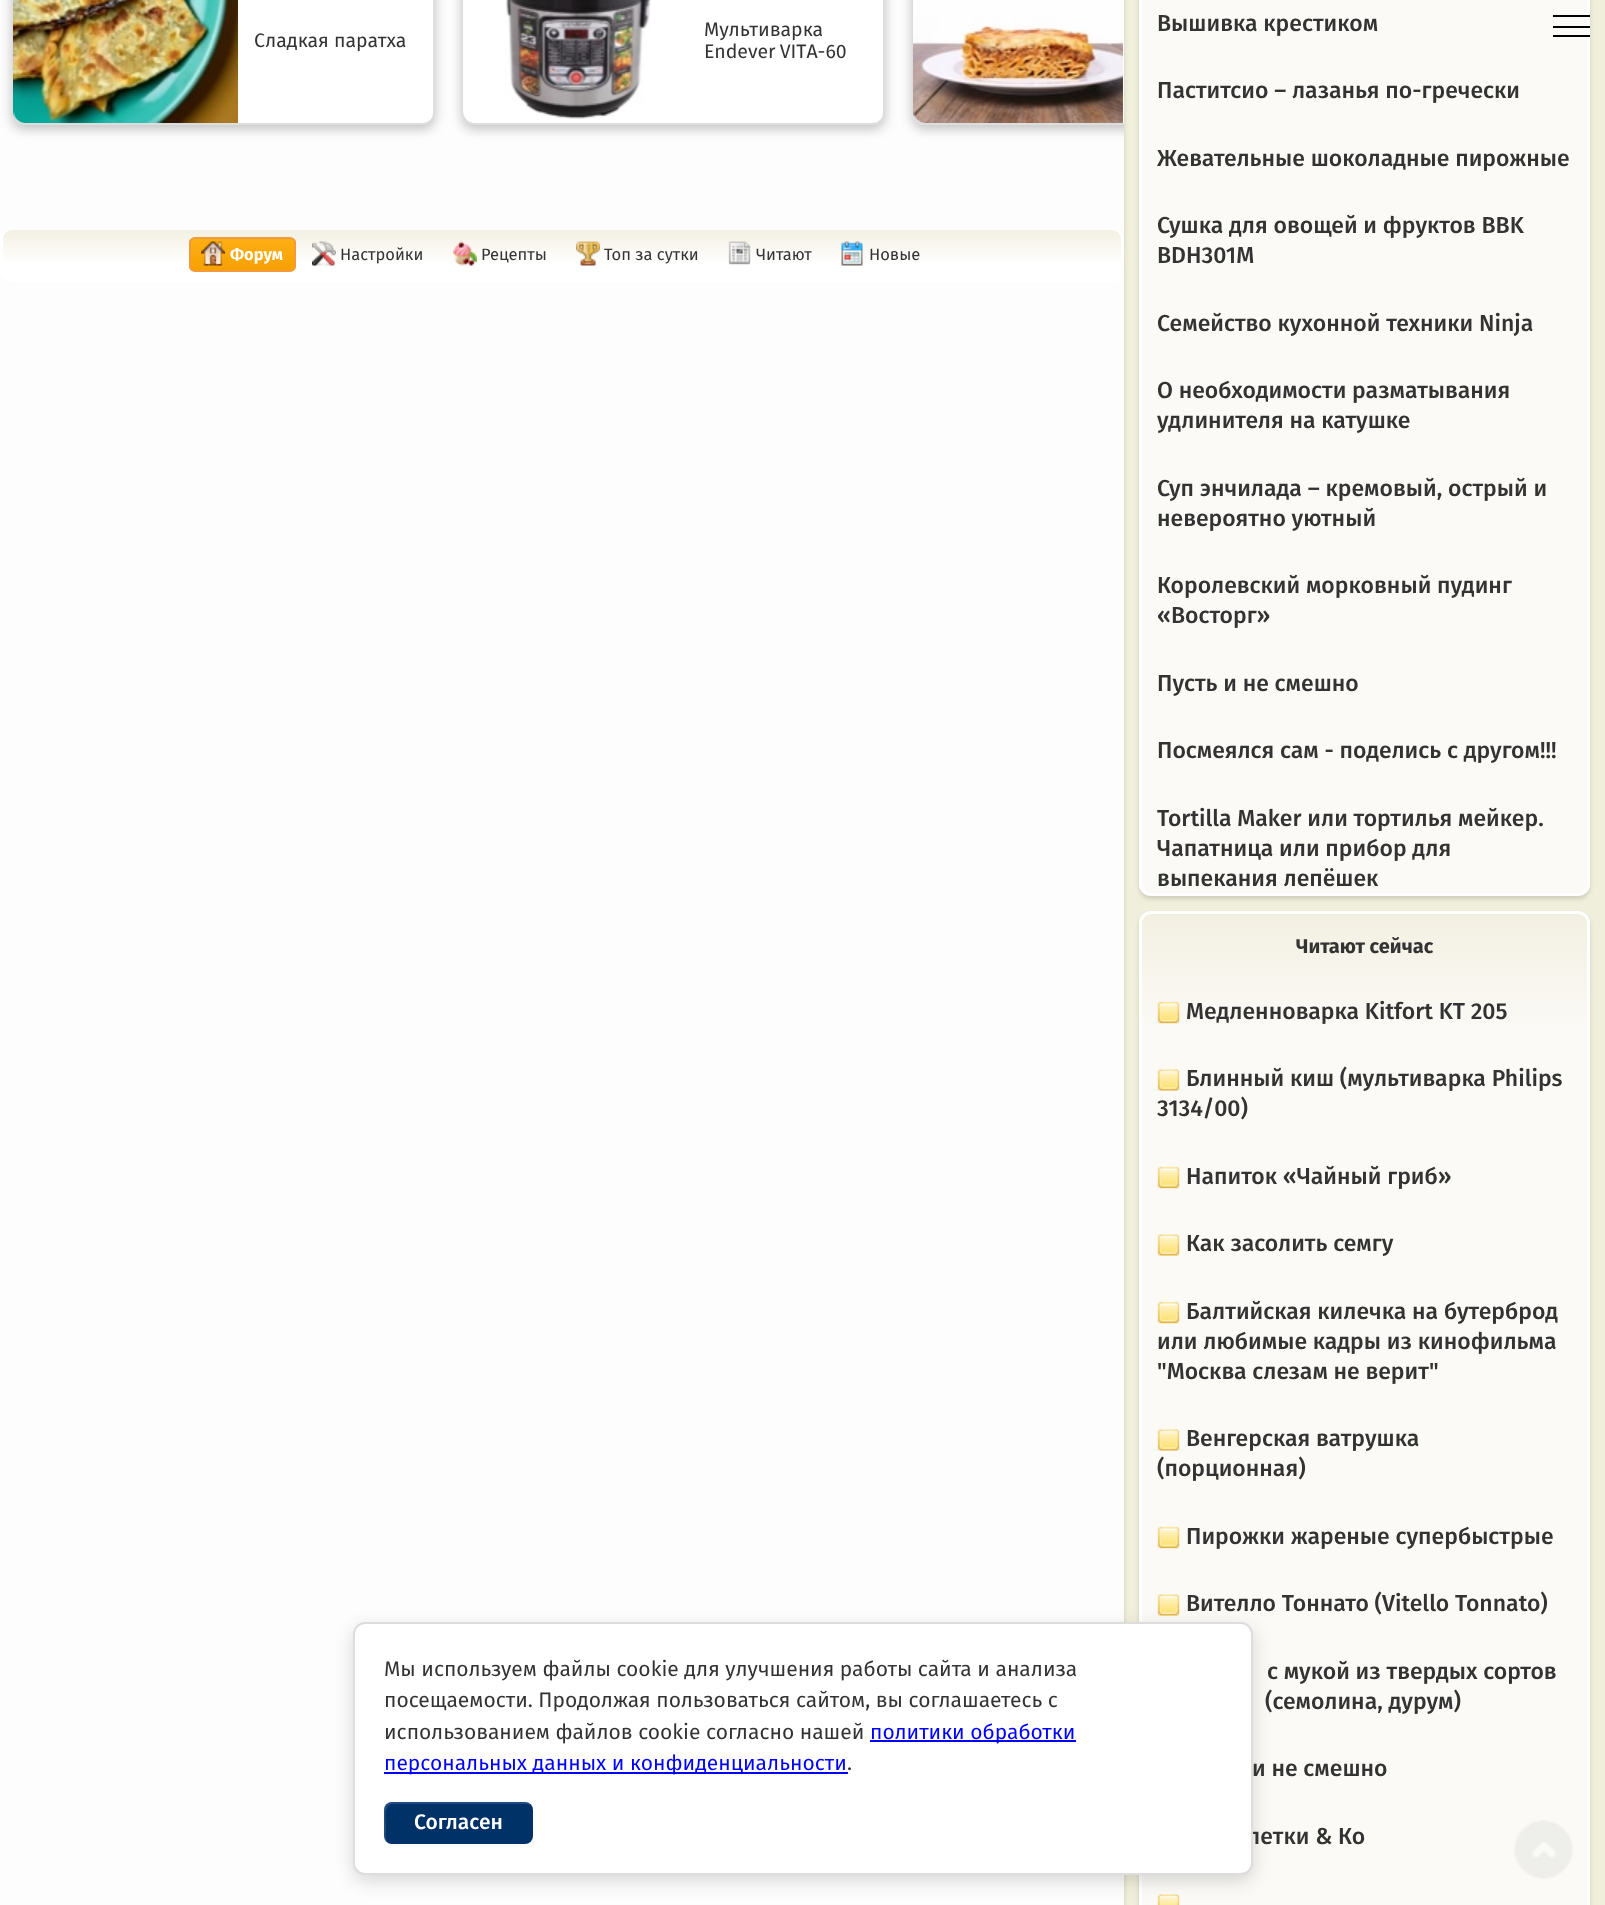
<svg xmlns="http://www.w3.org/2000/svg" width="1605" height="1905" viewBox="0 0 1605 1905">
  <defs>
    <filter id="blur1" x="-50%" y="-200%" width="200%" height="500%"><feGaussianBlur stdDeviation="2"/></filter>
    <filter id="blur2" x="-50%" y="-200%" width="200%" height="500%"><feGaussianBlur stdDeviation="6"/></filter>
    <clipPath id="clip1"><rect x="1139" y="-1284" width="451" height="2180" rx="12"/></clipPath>
    <linearGradient id="g1" gradientUnits="userSpaceOnUse" x1="1364" y1="-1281" x2="1364" y2="893"><stop offset="0" stop-color="#f3f0e2"/><stop offset="0.06" stop-color="#fbfaf6"/></linearGradient>
    <clipPath id="clip2"><rect x="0" y="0" width="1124" height="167"/></clipPath>
    <clipPath id="clip3"><rect x="0" y="0" width="1124" height="167"/></clipPath>
    <clipPath id="clip4"><rect x="0" y="227" width="1124" height="55" rx="12"/></clipPath>
    <linearGradient id="g2" gradientUnits="userSpaceOnUse" x1="562" y1="229" x2="562" y2="279"><stop offset="0" stop-color="#f3f0e2"/><stop offset="0.7" stop-color="#ffffff"/></linearGradient>
    <clipPath id="clip5"><rect x="189" y="237" width="107" height="35" rx="6"/></clipPath>
    <linearGradient id="g3" gradientUnits="userSpaceOnUse" x1="242" y1="239" x2="242" y2="270"><stop offset="0" stop-color="#ffae14"/><stop offset="1" stop-color="#f5a100"/></linearGradient>
    <clipPath id="clip6"><rect x="1139" y="911" width="451" height="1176" rx="12"/></clipPath>
    <linearGradient id="g4" gradientUnits="userSpaceOnUse" x1="1364" y1="914" x2="1364" y2="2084"><stop offset="0" stop-color="#f3f0e2"/><stop offset="0.1" stop-color="#fbfaf6"/></linearGradient>
    <filter id="blur3" x="-50%" y="-200%" width="200%" height="500%"><feGaussianBlur stdDeviation="9"/></filter>
  </defs>
  <rect width="100%" height="100%" fill="#f0efdb"/>
  <rect x="0" y="-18" width="1124" height="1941" rx="12" fill="#000000" fill-opacity="0.14" filter="url(#blur1)"/>
  <rect x="0" y="0" width="1124" height="1905" fill="#fdfdfd"/>
  <rect x="12" y="-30" width="423" height="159" rx="12" fill="#000000" fill-opacity="0.24" filter="url(#blur2)"/>
  <rect x="13" y="-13" width="421" height="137" rx="11" fill="#ffffff" stroke="#dddddd" stroke-width="2"/>
  <image x="13" y="0" width="225" height="123" href="img1.png"/>
  <text x="254" y="47" font-family="Fira Sans" font-size="19.5" fill="#333333">Сладкая паратха</text>
  <rect x="462" y="-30" width="423" height="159" rx="12" fill="#000000" fill-opacity="0.24" filter="url(#blur2)"/>
  <rect x="463" y="-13" width="421" height="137" rx="11" fill="#ffffff" stroke="#dddddd" stroke-width="2"/>
  <image x="463" y="0" width="188" height="119" href="img2.png"/>
  <text x="704" y="36" font-family="Fira Sans" font-size="19.5" fill="#333333">Мультиварка</text>
  <text x="704" y="58" word-spacing="-1" font-family="Fira Sans" font-size="19.5" fill="#333333">Endever VITA-60</text>
  <rect x="1139" y="-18" width="451" height="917" rx="12" fill="#000000" fill-opacity="0.14" filter="url(#blur1)"/>
  <g clip-path="url(#clip1)">
    <rect x="1139" y="0" width="451" height="893" fill="url(#g1)"/>
  </g>
  <rect x="1140.5" y="-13.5" width="448" height="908" rx="10.5" fill="none" stroke="#ffffff" stroke-width="3"/>
  <g clip-path="url(#clip2)">
    <rect x="912" y="-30" width="423" height="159" rx="12" fill="#000000" fill-opacity="0.24" filter="url(#blur2)"/>
  </g>
  <path d="M924-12H1124V125H924C917.5 125 912 119.5 912 113V0C912-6.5 917.5-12 924-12Z" fill="#ffffff"/>
  <text x="1157" y="31" font-family="Fira Sans" font-size="23" font-weight="500" fill="#333333">Вышивка крестиком</text>
  <text x="1157" y="98" font-family="Fira Sans" font-size="23" font-weight="500" fill="#333333">Паститсио – лазанья по-гречески</text>
  <g clip-path="url(#clip3)">
    <rect x="913" y="-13" width="421" height="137" rx="11" fill="none" stroke="#dddddd" stroke-width="2"/>
  </g>
  <image x="913" y="0" width="210" height="123" href="img3.png"/>
  <rect x="1553" y="15" width="37" height="2" fill="#000000"/>
  <rect x="1553" y="26" width="37" height="2" fill="#000000"/>
  <rect x="1553" y="35" width="37" height="2" fill="#000000"/>
  <g clip-path="url(#clip4)">
    <rect x="0" y="230" width="1124" height="49" fill="url(#g2)"/>
  </g>
  <rect x="1.5" y="228.5" width="1121" height="52" rx="10.5" fill="none" stroke="#ffffff" stroke-width="3"/>
  <g clip-path="url(#clip5)">
    <rect x="189" y="239" width="107" height="31" fill="url(#g3)"/>
  </g>
  <rect x="190" y="238" width="105" height="33" rx="5" fill="none" stroke="#f49a3a" stroke-width="2"/>
  <image x="201" y="241" width="24" height="25" href="img4.png"/>
  <text x="230" y="260" font-family="Fira Sans" font-size="16.5" font-weight="bold" fill="#ffffff">Форум</text>
  <image x="312" y="241" width="24" height="25" href="img5.png"/>
  <text x="340" y="260" font-family="Fira Sans" font-size="16.5" fill="#333333">Настройки</text>
  <image x="453" y="241" width="24" height="25" href="img6.png"/>
  <text x="481" y="260" font-family="Fira Sans" font-size="16.5" fill="#333333">Рецепты</text>
  <image x="576" y="241" width="24" height="25" href="img7.png"/>
  <text x="604" y="260" font-family="Fira Sans" font-size="16.5" fill="#333333">Топ за сутки</text>
  <image x="728" y="241" width="23" height="24" href="img8.png"/>
  <text x="756" y="260" font-family="Fira Sans" font-size="16.5" fill="#333333">Читают</text>
  <image x="841" y="241" width="22" height="25" href="img9.png"/>
  <text x="869" y="260" font-family="Fira Sans" font-size="16.5" fill="#333333">Новые</text>
  <rect x="1139" y="914" width="451" height="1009" rx="12" fill="#000000" fill-opacity="0.14" filter="url(#blur1)"/>
  <g clip-path="url(#clip6)">
    <rect x="1139" y="914" width="451" height="991" fill="url(#g4)"/>
  </g>
  <rect x="1140.5" y="912.5" width="448" height="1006" rx="10.5" fill="none" stroke="#ffffff" stroke-width="3"/>
  <image x="1157" y="1594" width="23" height="22" href="img11.png"/>
  <image x="1157" y="1894" width="23" height="11" href="img13.png"/>
  <rect x="353" y="1628" width="900" height="253" rx="12" fill="#000000" fill-opacity="0.15" filter="url(#blur3)"/>
  <text x="1247" y="1844" font-family="Fira Sans" font-size="23" font-weight="500" fill="#333333">лeтки &amp; Ко</text>
  <rect x="354" y="1623" width="898" height="251" rx="11" fill="#ffffff" stroke="#dddddd" stroke-width="2"/>
  <text x="384" y="1676" font-family="Fira Sans" font-size="21" fill="#333333">Мы используем файлы cookie для улучшения работы сайта и анализа</text>
  <text x="384" y="1707" font-family="Fira Sans" font-size="21" fill="#333333">посещаемости. Продолжая пользоваться сайтом, вы соглашаетесь с</text>
  <text x="384" y="1739" font-family="Fira Sans" font-size="21" fill="#333333">использованием файлов cookie согласно нашей</text>
  <rect x="870" y="1740" width="206" height="2" fill="#0000ff"/>
  <text x="870" y="1739" font-family="Fira Sans" font-size="21" fill="#0000ff">политики обработки</text>
  <rect x="384" y="1772" width="464" height="2" fill="#0000ff"/>
  <text x="384" y="1770" font-family="Fira Sans" font-size="21" fill="#0000ff">персональных данных и конфиденциальности</text>
  <text x="847" y="1770" font-family="Fira Sans" font-size="21" fill="#333333">.</text>
  <rect x="384" y="1802" width="149" height="42" rx="8" fill="#003267"/>
  <path d="M393 1804H526C529 1804 531 1805 533 1807C531 1804 528 1802 525 1802H392C388 1802 384 1806 384 1810V1836C384 1838 385 1840 387 1842C385 1838 386 1830 386 1826C386 1820 383 1804 393 1804Z" fill="#a0bbdd" fill-opacity="0.2"/>
  <text x="414" y="1829" font-family="Fira Sans" font-size="21" font-weight="500" fill="#ffffff">Согласен</text>
  <text x="1157" y="166" font-family="Fira Sans" font-size="23" font-weight="500" fill="#333333">Жевательные шоколадные пирожные</text>
  <text x="1157" y="233" font-family="Fira Sans" font-size="23" font-weight="500" fill="#333333">Сушка для овощей и фруктов BBK</text>
  <text x="1157" y="263" font-family="Fira Sans" font-size="23" font-weight="500" fill="#333333">BDH301M</text>
  <text x="1157" y="331" font-family="Fira Sans" font-size="23" font-weight="500" fill="#333333">Семейство кухонной техники Ninja</text>
  <text x="1157" y="398" font-family="Fira Sans" font-size="23" font-weight="500" fill="#333333">О необходимости разматывания</text>
  <text x="1157" y="428" font-family="Fira Sans" font-size="23" font-weight="500" fill="#333333">удлинителя на катушке</text>
  <text x="1157" y="496" font-family="Fira Sans" font-size="23" font-weight="500" fill="#333333">Суп энчилада – кремовый, острый и</text>
  <text x="1157" y="526" font-family="Fira Sans" font-size="23" font-weight="500" fill="#333333">невероятно уютный</text>
  <text x="1157" y="593" font-family="Fira Sans" font-size="23" font-weight="500" fill="#333333">Королевский морковный пудинг</text>
  <text x="1157" y="623" font-family="Fira Sans" font-size="23" font-weight="500" fill="#333333">«Восторг»</text>
  <text x="1157" y="691" font-family="Fira Sans" font-size="23" font-weight="500" fill="#333333">Пусть и не смешно</text>
  <text x="1157" y="758" font-family="Fira Sans" font-size="23" font-weight="500" fill="#333333">Посмеялся сам - поделись с другом!!!</text>
  <text x="1157" y="826" font-family="Fira Sans" font-size="23" font-weight="500" fill="#333333">Tortilla Maker или тортилья мейкер.</text>
  <text x="1157" y="856" font-family="Fira Sans" font-size="23" font-weight="500" fill="#333333">Чапатница или прибор для</text>
  <text x="1157" y="886" font-family="Fira Sans" font-size="23" font-weight="500" fill="#333333">выпекания лепёшек</text>
  <text x="1296" y="953" font-family="Fira Sans" font-size="20" font-weight="bold" fill="#333333">Читают сейчас</text>
  <image x="1157" y="1001" width="23" height="23" href="img10.png"/>
  <text x="1186" y="1019" font-family="Fira Sans" font-size="23" font-weight="500" fill="#333333">Медленноварка Kitfort KT 205</text>
  <image x="1157" y="1069" width="23" height="22" href="img11.png"/>
  <text x="1186" y="1086" font-family="Fira Sans" font-size="23" font-weight="500" fill="#333333">Блинный киш (мультиварка Philips</text>
  <text x="1157" y="1116" font-family="Fira Sans" font-size="23" font-weight="500" fill="#333333">3134/00)</text>
  <image x="1157" y="1166" width="23" height="23" href="img12.png"/>
  <text x="1186" y="1184" font-family="Fira Sans" font-size="23" font-weight="500" fill="#333333">Напиток «Чайный гриб»</text>
  <image x="1157" y="1234" width="23" height="22" href="img11.png"/>
  <text x="1186" y="1251" font-family="Fira Sans" font-size="23" font-weight="500" fill="#333333">Как засолить семгу</text>
  <image x="1157" y="1301" width="23" height="23" href="img12.png"/>
  <text x="1186" y="1319" font-family="Fira Sans" font-size="23" font-weight="500" fill="#333333">Балтийская килечка на бутерброд</text>
  <text x="1157" y="1349" font-family="Fira Sans" font-size="23" font-weight="500" fill="#333333">или любимые кадры из кинофильма</text>
  <text x="1157" y="1379" font-family="Fira Sans" font-size="23" font-weight="500" fill="#333333">"Москва слезам не верит"</text>
  <image x="1157" y="1429" width="23" height="22" href="img11.png"/>
  <text x="1186" y="1446" font-family="Fira Sans" font-size="23" font-weight="500" fill="#333333">Венгерская ватрушка</text>
  <text x="1157" y="1476" font-family="Fira Sans" font-size="23" font-weight="500" fill="#333333">(порционная)</text>
  <image x="1157" y="1526" width="23" height="23" href="img12.png"/>
  <text x="1186" y="1544" font-family="Fira Sans" font-size="23" font-weight="500" fill="#333333">Пирожки жареные супербыстрые</text>
  <text x="1186" y="1611" font-family="Fira Sans" font-size="23" font-weight="500" fill="#333333">Вителло Тоннато (Vitello Tonnato)</text>
  <text x="1267" y="1679" font-family="Fira Sans" font-size="23" font-weight="500" fill="#333333">с мукой из твердых сортов</text>
  <text x="1265" y="1709" font-family="Fira Sans" font-size="23" font-weight="500" fill="#333333">(семолина, дурум)</text>
  <text x="1252" y="1776" font-family="Fira Sans" font-size="23" font-weight="500" fill="#333333">и не смешно</text>
  <image x="1514" y="1820" width="59" height="59" href="img14.png"/>
</svg>
